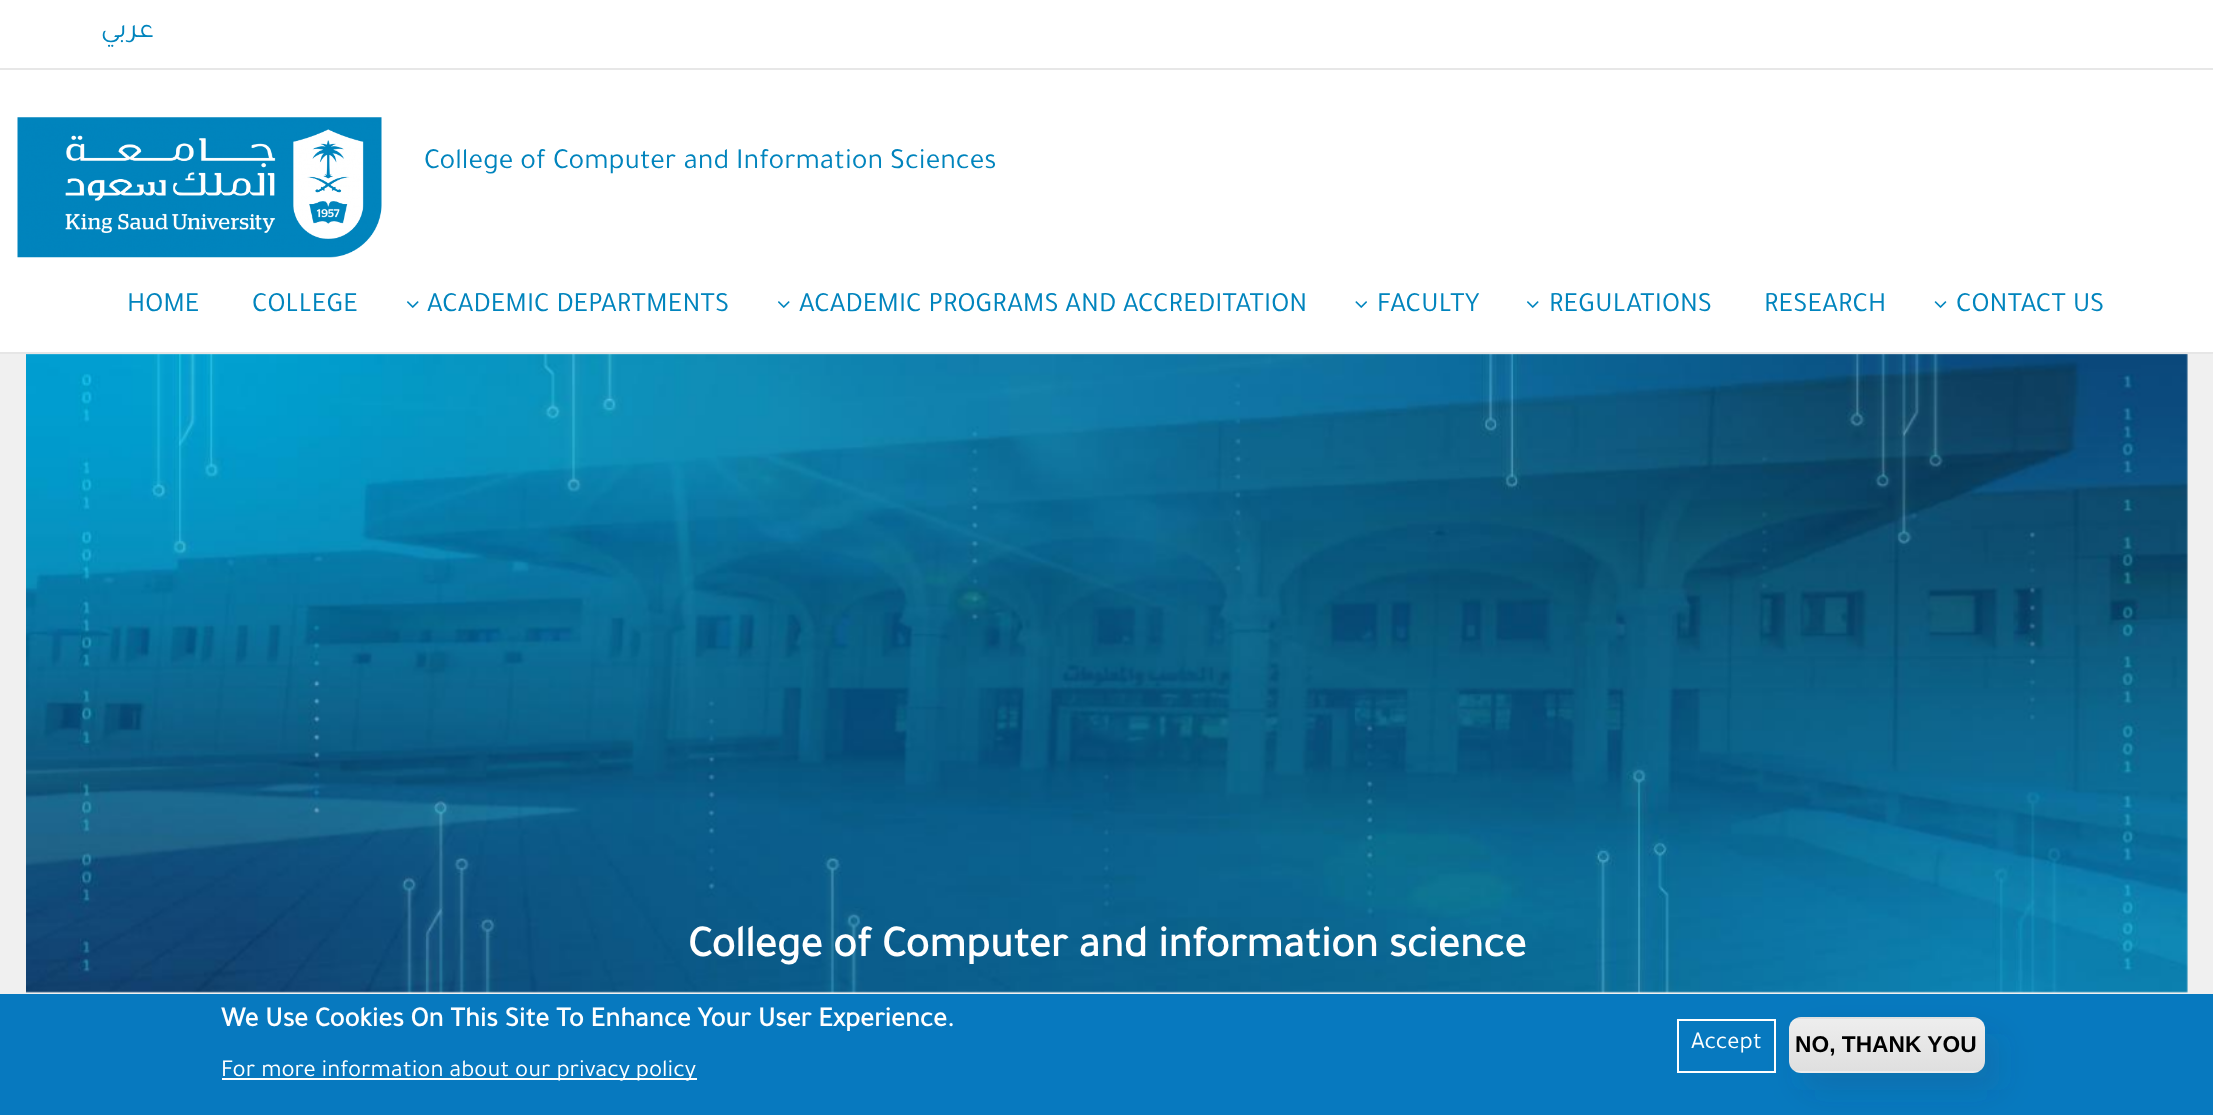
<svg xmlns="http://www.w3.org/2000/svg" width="2213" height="1115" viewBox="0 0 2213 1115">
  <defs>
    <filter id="blur1" x="-50%" y="-200%" width="200%" height="500%"><feGaussianBlur stdDeviation="17.5"/></filter>
    <clipPath id="clip1"><rect x="1789" y="1017" width="196" height="56" rx="12"/></clipPath>
    <linearGradient id="g1" gradientUnits="userSpaceOnUse" x1="1887" y1="966" x2="1887" y2="1019"><stop offset="0.05" stop-color="#ededed"/><stop offset="1" stop-color="#dfdfdf"/></linearGradient>
    <linearGradient id="g2" gradientUnits="userSpaceOnUse" x1="1887" y1="1019" x2="1887" y2="1071"><stop offset="0.05" stop-color="#ededed"/><stop offset="1" stop-color="#dfdfdf"/></linearGradient>
    <linearGradient id="g3" gradientUnits="userSpaceOnUse" x1="1887" y1="1071" x2="1887" y2="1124"><stop offset="0.05" stop-color="#ededed"/><stop offset="1" stop-color="#dfdfdf"/></linearGradient>
  </defs>
  <rect width="100%" height="100%" fill="#ffffff"/>
  <rect x="0" y="352" width="2213" height="2" fill="#e6e6e6"/>
  <rect x="0" y="68" width="2213" height="2" fill="#e7e7e7"/>
  <text x="154" y="37" font-family="Tajawal" font-size="28" direction="rtl" fill="#0084bd">عربي</text>
  <image x="17" y="117" width="365" height="141" href="img1.png"/>
  <text x="424" y="168" font-family="Tajawal" font-size="29.4" fill="#0084bd">College of Computer and Information Sciences</text>
  <text x="127" y="311" font-family="Tajawal" font-size="28" fill="#0084bd">HOME</text>
  <text x="252" y="311" font-family="Tajawal" font-size="28" fill="#0084bd">COLLEGE</text>
  <image x="407" y="301" width="12" height="7" href="img2.png"/>
  <text x="427" y="311" font-family="Tajawal" font-size="28" fill="#0084bd">ACADEMIC DEPARTMENTS</text>
  <image x="778" y="301" width="12" height="7" href="img2.png"/>
  <text x="799" y="311" font-family="Tajawal" font-size="28" fill="#0084bd">ACADEMIC PROGRAMS AND ACCREDITATION</text>
  <image x="1355" y="301" width="12" height="7" href="img3.png"/>
  <text x="1377" y="311" font-family="Tajawal" font-size="28" fill="#0084bd">FACULTY</text>
  <image x="1527" y="301" width="12" height="7" href="img2.png"/>
  <text x="1549" y="311" font-family="Tajawal" font-size="28" fill="#0084bd">REGULATIONS</text>
  <text x="1764" y="311" font-family="Tajawal" font-size="28" fill="#0084bd">RESEARCH</text>
  <image x="1934" y="301" width="13" height="7" href="img4.png"/>
  <text x="1956" y="311" font-family="Tajawal" font-size="28" fill="#0084bd">CONTACT US</text>
  <rect x="0" y="354" width="2213" height="640" fill="#f0f0f0"/>
  <image x="26" y="354" width="2162" height="639" href="img5.png"/>
  <text x="688" y="956" font-family="Tajawal" font-size="44.25" font-weight="bold" fill="#ffffff">College of Computer and information science</text>
  <rect x="0" y="994" width="2213" height="121" fill="#0779bf"/>
  <text x="221" y="1026" font-family="Tajawal" font-size="28" font-weight="bold" fill="#ffffff">We Use Cookies On This Site To Enhance Your User Experience.</text>
  <rect x="222" y="1078" width="475" height="2" fill="#ffffff"/>
  <text x="221" y="1076" font-family="Tajawal" font-size="24.5" fill="#ffffff">For more information about our privacy policy</text>
  <rect x="1678" y="1020" width="97" height="52" fill="none" stroke="#ffffff" stroke-width="2"/>
  <text x="1691" y="1048" font-family="Tajawal" font-size="24.5" fill="#ffffff">Accept</text>
  <rect x="1803" y="1034" width="196" height="56" rx="12" fill="#2e3d49" fill-opacity="0.15" filter="url(#blur1)"/>
  <g clip-path="url(#clip1)">
    <rect x="1789" y="1017" width="196" height="2" fill="url(#g1)"/>
    <rect x="1789" y="1019" width="196" height="52" fill="url(#g2)"/>
    <rect x="1789" y="1071" width="196" height="2" fill="url(#g3)"/>
  </g>
  <text x="1795" y="1052" font-family="Liberation Sans" font-size="22.75" font-weight="bold" fill="#000000">NO, THANK YOU</text>
</svg>
